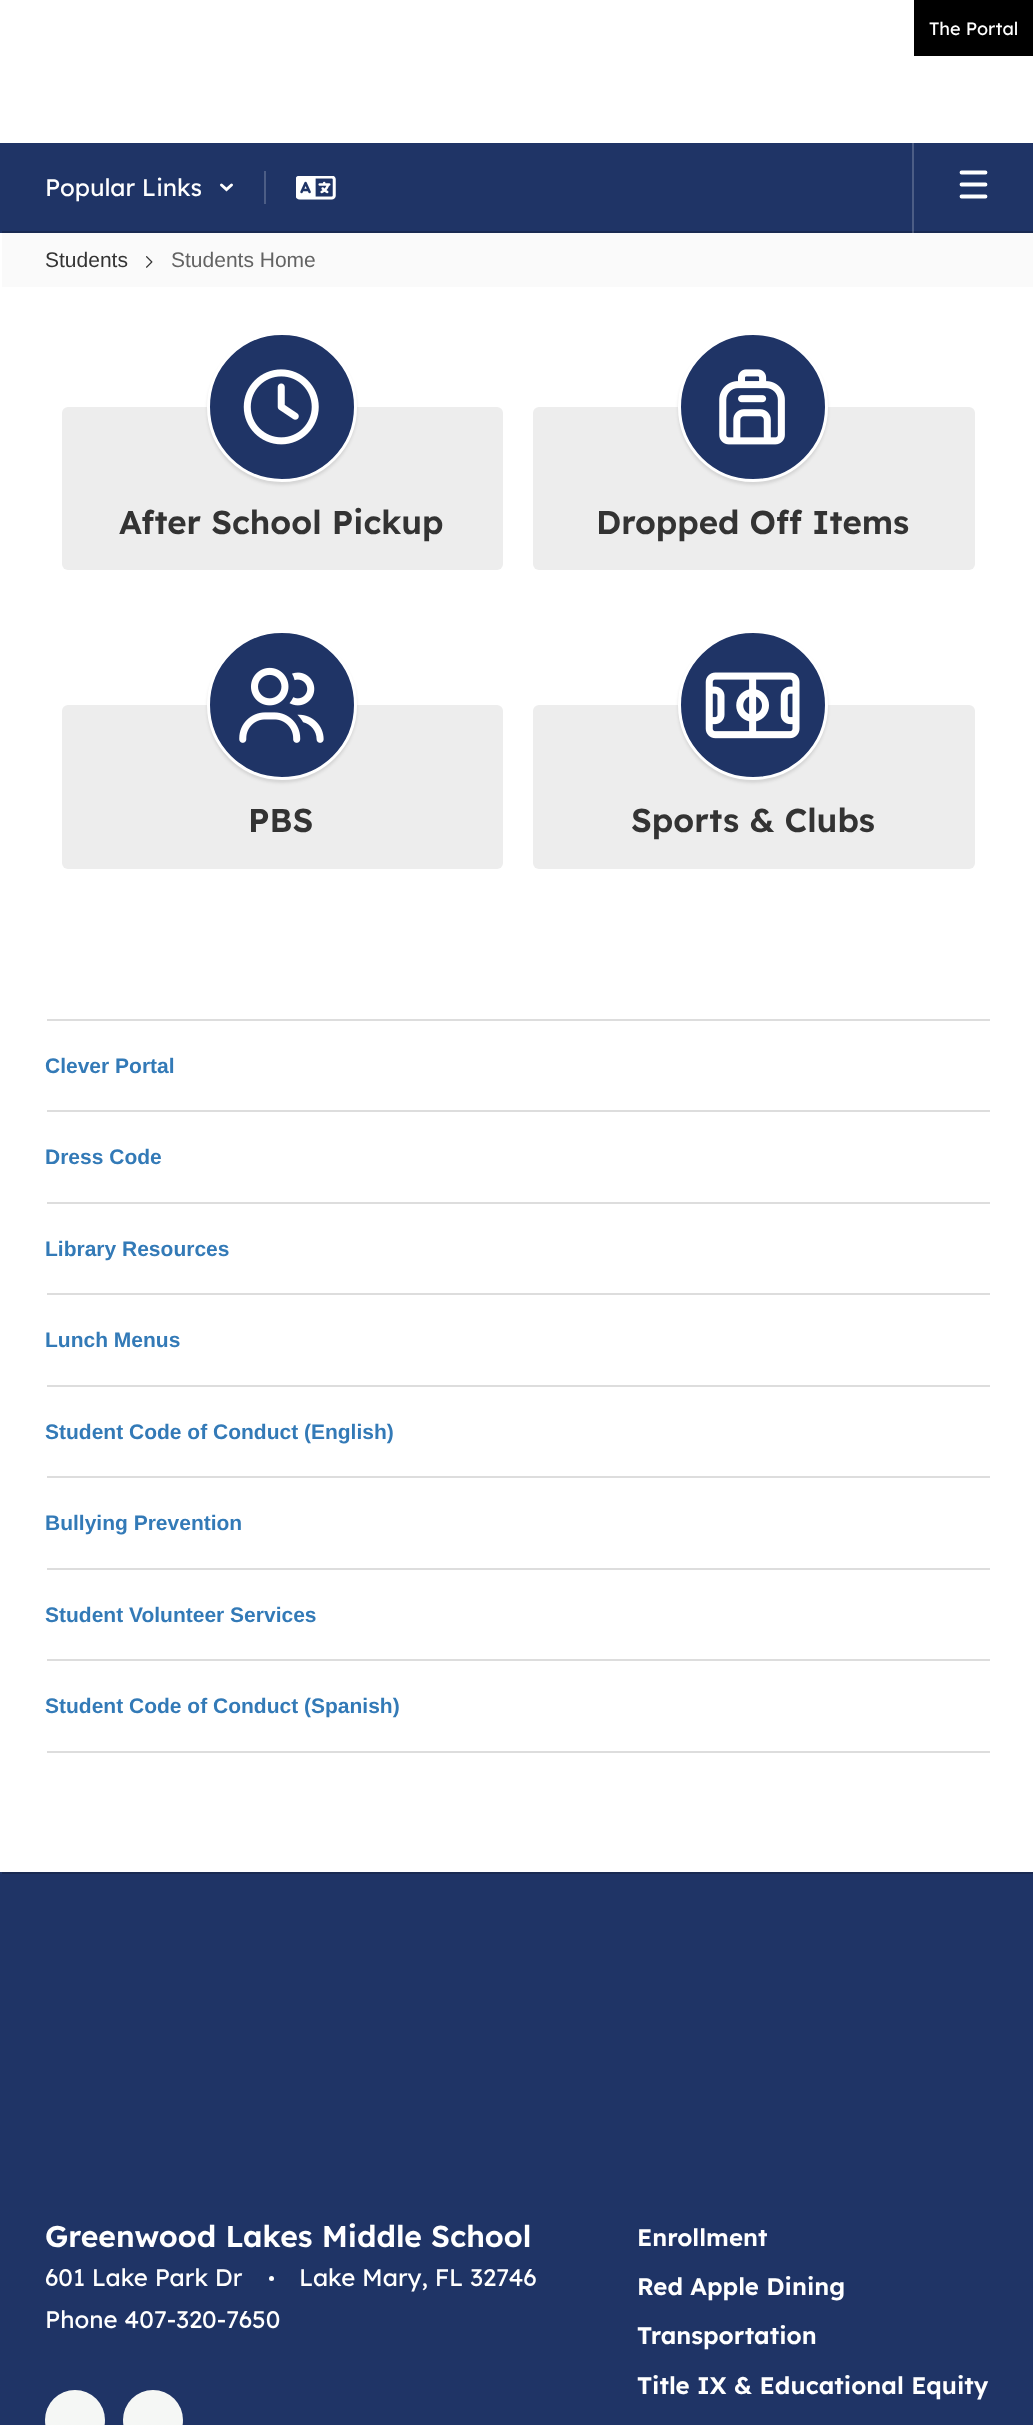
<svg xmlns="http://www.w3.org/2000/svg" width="1033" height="2425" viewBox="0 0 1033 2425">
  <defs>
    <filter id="blur1" x="-50%" y="-200%" width="200%" height="500%"><feGaussianBlur stdDeviation="1.5"/></filter>
  </defs>
  <rect width="100%" height="100%" fill="#ffffff"/>
  <rect x="914" y="0" width="119" height="56" fill="#000000"/>
  <text x="929" y="35" font-family="Lexend" font-size="18" fill="#ffffff">The Portal</text>
  <rect x="0" y="143" width="1033" height="90" fill="#1f3466"/>
  <rect x="912" y="143" width="2" height="90" fill="#4c5d85"/>
  <text x="45" y="196" font-family="Lexend" font-size="24" fill="#ffffff">Popular Links</text>
  <path d="M221.5 185L226.5 189.5L231.5 185" fill="none" stroke="#ffffff" stroke-width="3" stroke-linecap="round"/>
  <rect x="264" y="171" width="2" height="33" fill="#4c5d85"/>
  <image x="296" y="176" width="40" height="24" href="img1.png"/>
  <path d="M961.5 172.5H985.5M961.5 184.5H985.5M961.5 196.5H985.5" fill="none" stroke="#ffffff" stroke-width="3.8" stroke-linecap="round"/>
  <rect x="2" y="231" width="1031" height="2" fill="#192a52"/>
  <rect x="912" y="231" width="2" height="2" fill="#475575"/>
  <rect x="2" y="233" width="1031" height="54" fill="#fafafa"/>
  <text x="45" y="267" font-family="Liberation Sans" font-size="21" fill="#333333">Students</text>
  <image x="146" y="256" width="7" height="12" href="img2.png"/>
  <text x="171" y="267" font-family="Liberation Sans" font-size="21" fill="#636363">Students Home</text>
  <rect x="62" y="407" width="441" height="163" rx="6" fill="#ededed"/>
  <rect x="207" y="335" width="150" height="150" rx="75" fill="#000000" fill-opacity="0.1" filter="url(#blur1)"/>
  <circle cx="282" cy="407" r="73.5" fill="#1f3466" stroke="#ffffff" stroke-width="3"/>
  <image x="243" y="369" width="76" height="76" href="img3.png"/>
  <text x="119" y="534" font-family="Lexend" font-size="33" font-weight="600" fill="#333333">After School Pickup</text>
  <rect x="533" y="407" width="442" height="163" rx="6" fill="#ededed"/>
  <rect x="678" y="335" width="150" height="150" rx="75" fill="#000000" fill-opacity="0.1" filter="url(#blur1)"/>
  <circle cx="753" cy="407" r="73.5" fill="#1f3466" stroke="#ffffff" stroke-width="3"/>
  <image x="719" y="369" width="66" height="76" href="img4.png"/>
  <text x="596" y="534" font-family="Lexend" font-size="33" font-weight="600" fill="#333333">Dropped Off Items</text>
  <rect x="62" y="705" width="441" height="164" rx="6" fill="#ededed"/>
  <rect x="207" y="633" width="150" height="150" rx="75" fill="#000000" fill-opacity="0.1" filter="url(#blur1)"/>
  <circle cx="282" cy="705" r="73.5" fill="#1f3466" stroke="#ffffff" stroke-width="3"/>
  <image x="239" y="667" width="85" height="76" href="img5.png"/>
  <text x="248" y="832" font-family="Lexend" font-size="33" font-weight="600" fill="#333333">PBS</text>
  <rect x="533" y="705" width="442" height="164" rx="6" fill="#ededed"/>
  <rect x="678" y="633" width="150" height="150" rx="75" fill="#000000" fill-opacity="0.1" filter="url(#blur1)"/>
  <circle cx="753" cy="705" r="73.5" fill="#1f3466" stroke="#ffffff" stroke-width="3"/>
  <image x="705" y="672" width="95" height="67" href="img6.png"/>
  <text x="631" y="832" font-family="Lexend" font-size="33" font-weight="600" fill="#333333">Sports &amp; Clubs</text>
  <rect x="47" y="1019" width="943" height="2" fill="#dddddd"/>
  <text x="45" y="1073" font-family="Liberation Sans" font-size="21" font-weight="bold" fill="#337ab7">Clever Portal</text>
  <rect x="47" y="1110" width="943" height="2" fill="#dddddd"/>
  <text x="45" y="1164" font-family="Liberation Sans" font-size="21" font-weight="bold" fill="#337ab7">Dress Code</text>
  <rect x="47" y="1202" width="943" height="2" fill="#dddddd"/>
  <text x="45" y="1256" font-family="Liberation Sans" font-size="21" font-weight="bold" fill="#337ab7">Library Resources</text>
  <rect x="47" y="1293" width="943" height="2" fill="#dddddd"/>
  <text x="45" y="1347" font-family="Liberation Sans" font-size="21" font-weight="bold" fill="#337ab7">Lunch Menus</text>
  <rect x="47" y="1385" width="943" height="2" fill="#dddddd"/>
  <text x="45" y="1439" font-family="Liberation Sans" font-size="21" font-weight="bold" fill="#337ab7">Student Code of Conduct (English)</text>
  <rect x="47" y="1476" width="943" height="2" fill="#dddddd"/>
  <text x="45" y="1530" font-family="Liberation Sans" font-size="21" font-weight="bold" fill="#337ab7">Bullying Prevention</text>
  <rect x="47" y="1568" width="943" height="2" fill="#dddddd"/>
  <text x="45" y="1622" font-family="Liberation Sans" font-size="21" font-weight="bold" fill="#337ab7">Student Volunteer Services</text>
  <rect x="47" y="1659" width="943" height="2" fill="#dddddd"/>
  <rect x="47" y="1751" width="943" height="2" fill="#dddddd"/>
  <text x="45" y="1713" font-family="Liberation Sans" font-size="21" font-weight="bold" fill="#337ab7">Student Code of Conduct (Spanish)</text>
  <rect x="0" y="1872" width="1033" height="553" fill="#1f3466"/>
  <rect x="2" y="1872" width="1031" height="2" fill="#192a52"/>
  <text x="45" y="2247" font-family="Lexend" font-size="30" font-weight="600" fill="#ffffff">Greenwood Lakes Middle School</text>
  <text x="45" y="2286" font-family="Lexend" font-size="24" fill="#ffffff">601 Lake Park Dr</text>
  <circle cx="271.5" cy="2278.5" r="2.5" fill="#ffffff"/>
  <text x="299" y="2286" font-family="Lexend" font-size="24" fill="#ffffff">Lake Mary, FL 32746</text>
  <text x="45" y="2328" font-family="Lexend" font-size="24" fill="#ffffff">Phone 407-320-7650</text>
  <circle cx="75" cy="2420" r="30" fill="#f5f7f5"/>
  <circle cx="153" cy="2420" r="30" fill="#f5f7f5"/>
  <text x="637" y="2246" font-family="Lexend" font-size="24" font-weight="600" fill="#ffffff">Enrollment</text>
  <text x="637" y="2295" font-family="Lexend" font-size="24" font-weight="600" fill="#ffffff">Red Apple Dining</text>
  <text x="637" y="2344" font-family="Lexend" font-size="24" font-weight="600" fill="#ffffff">Transportation</text>
  <text x="637" y="2394" font-family="Lexend" font-size="24" font-weight="600" fill="#ffffff">Title IX &amp; Educational Equity</text>
</svg>
